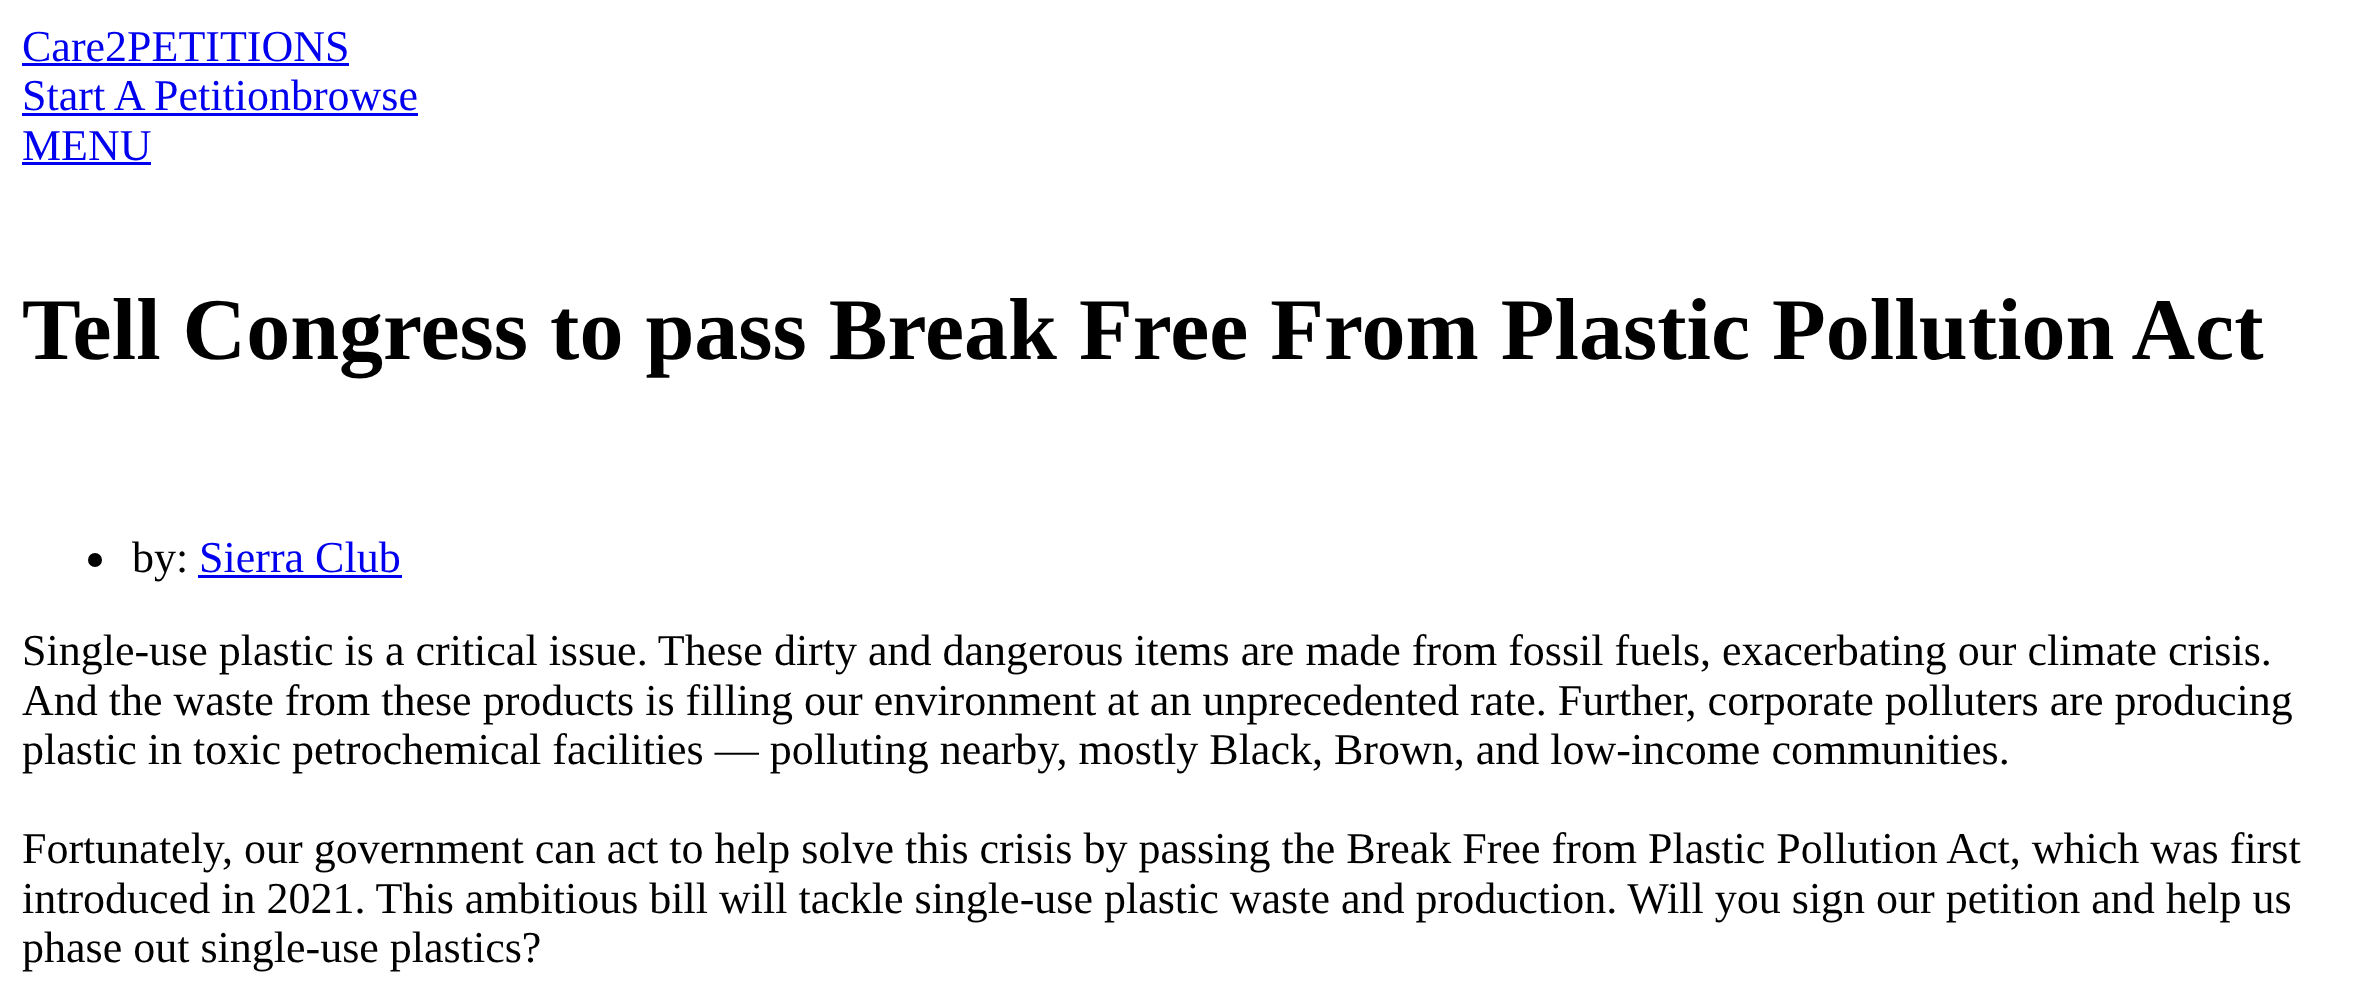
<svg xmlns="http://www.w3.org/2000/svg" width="2367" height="1001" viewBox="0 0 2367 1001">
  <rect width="100%" height="100%" fill="#ffffff"/>
  <text x="22" y="61" font-family="Liberation Serif" font-size="44" fill="#0000ee">Care2PETITIONS</text>
  <rect x="22" y="63" width="327" height="3" fill="#0000ee"/>
  <text x="22" y="110" font-family="Liberation Serif" font-size="44" fill="#0000ee">Start A Petitionbrowse</text>
  <rect x="22" y="113" width="396" height="3" fill="#0000ee"/>
  <text x="22" y="160" font-family="Liberation Serif" font-size="44" fill="#0000ee">MENU</text>
  <rect x="22" y="162" width="129" height="3" fill="#0000ee"/>
  <text x="22" y="359" font-family="Liberation Serif" font-size="88" font-weight="bold" fill="#000000">Tell Congress to pass Break Free From Plastic Pollution Act</text>
  <circle cx="95" cy="560" r="7" fill="#000000"/>
  <text x="132" y="572" font-family="Liberation Serif" font-size="44" fill="#000000">by:</text>
  <text x="199" y="572" font-family="Liberation Serif" font-size="44" fill="#0000ee">Sierra Club</text>
  <rect x="198" y="575" width="204" height="3" fill="#0000ee"/>
  <text x="22" y="665" font-family="Liberation Serif" font-size="44" fill="#000000">Single-use plastic is a critical issue. These dirty and dangerous items are made from fossil fuels, exacerbating our climate crisis.</text>
  <text x="22" y="715" font-family="Liberation Serif" font-size="44" fill="#000000">And the waste from these products is filling our environment at an unprecedented rate. Further, corporate polluters are producing</text>
  <text x="22" y="764" font-family="Liberation Serif" font-size="44" fill="#000000">plastic in toxic petrochemical facilities — polluting nearby, mostly Black, Brown, and low-income communities.</text>
  <text x="22" y="863" font-family="Liberation Serif" font-size="44" fill="#000000">Fortunately, our government can act to help solve this crisis by passing the Break Free from Plastic Pollution Act, which was first</text>
  <text x="22" y="913" font-family="Liberation Serif" font-size="44" fill="#000000">introduced in 2021. This ambitious bill will tackle single-use plastic waste and production. Will you sign our petition and help us</text>
  <text x="22" y="962" font-family="Liberation Serif" font-size="44" fill="#000000">phase out single-use plastics?</text>
</svg>
